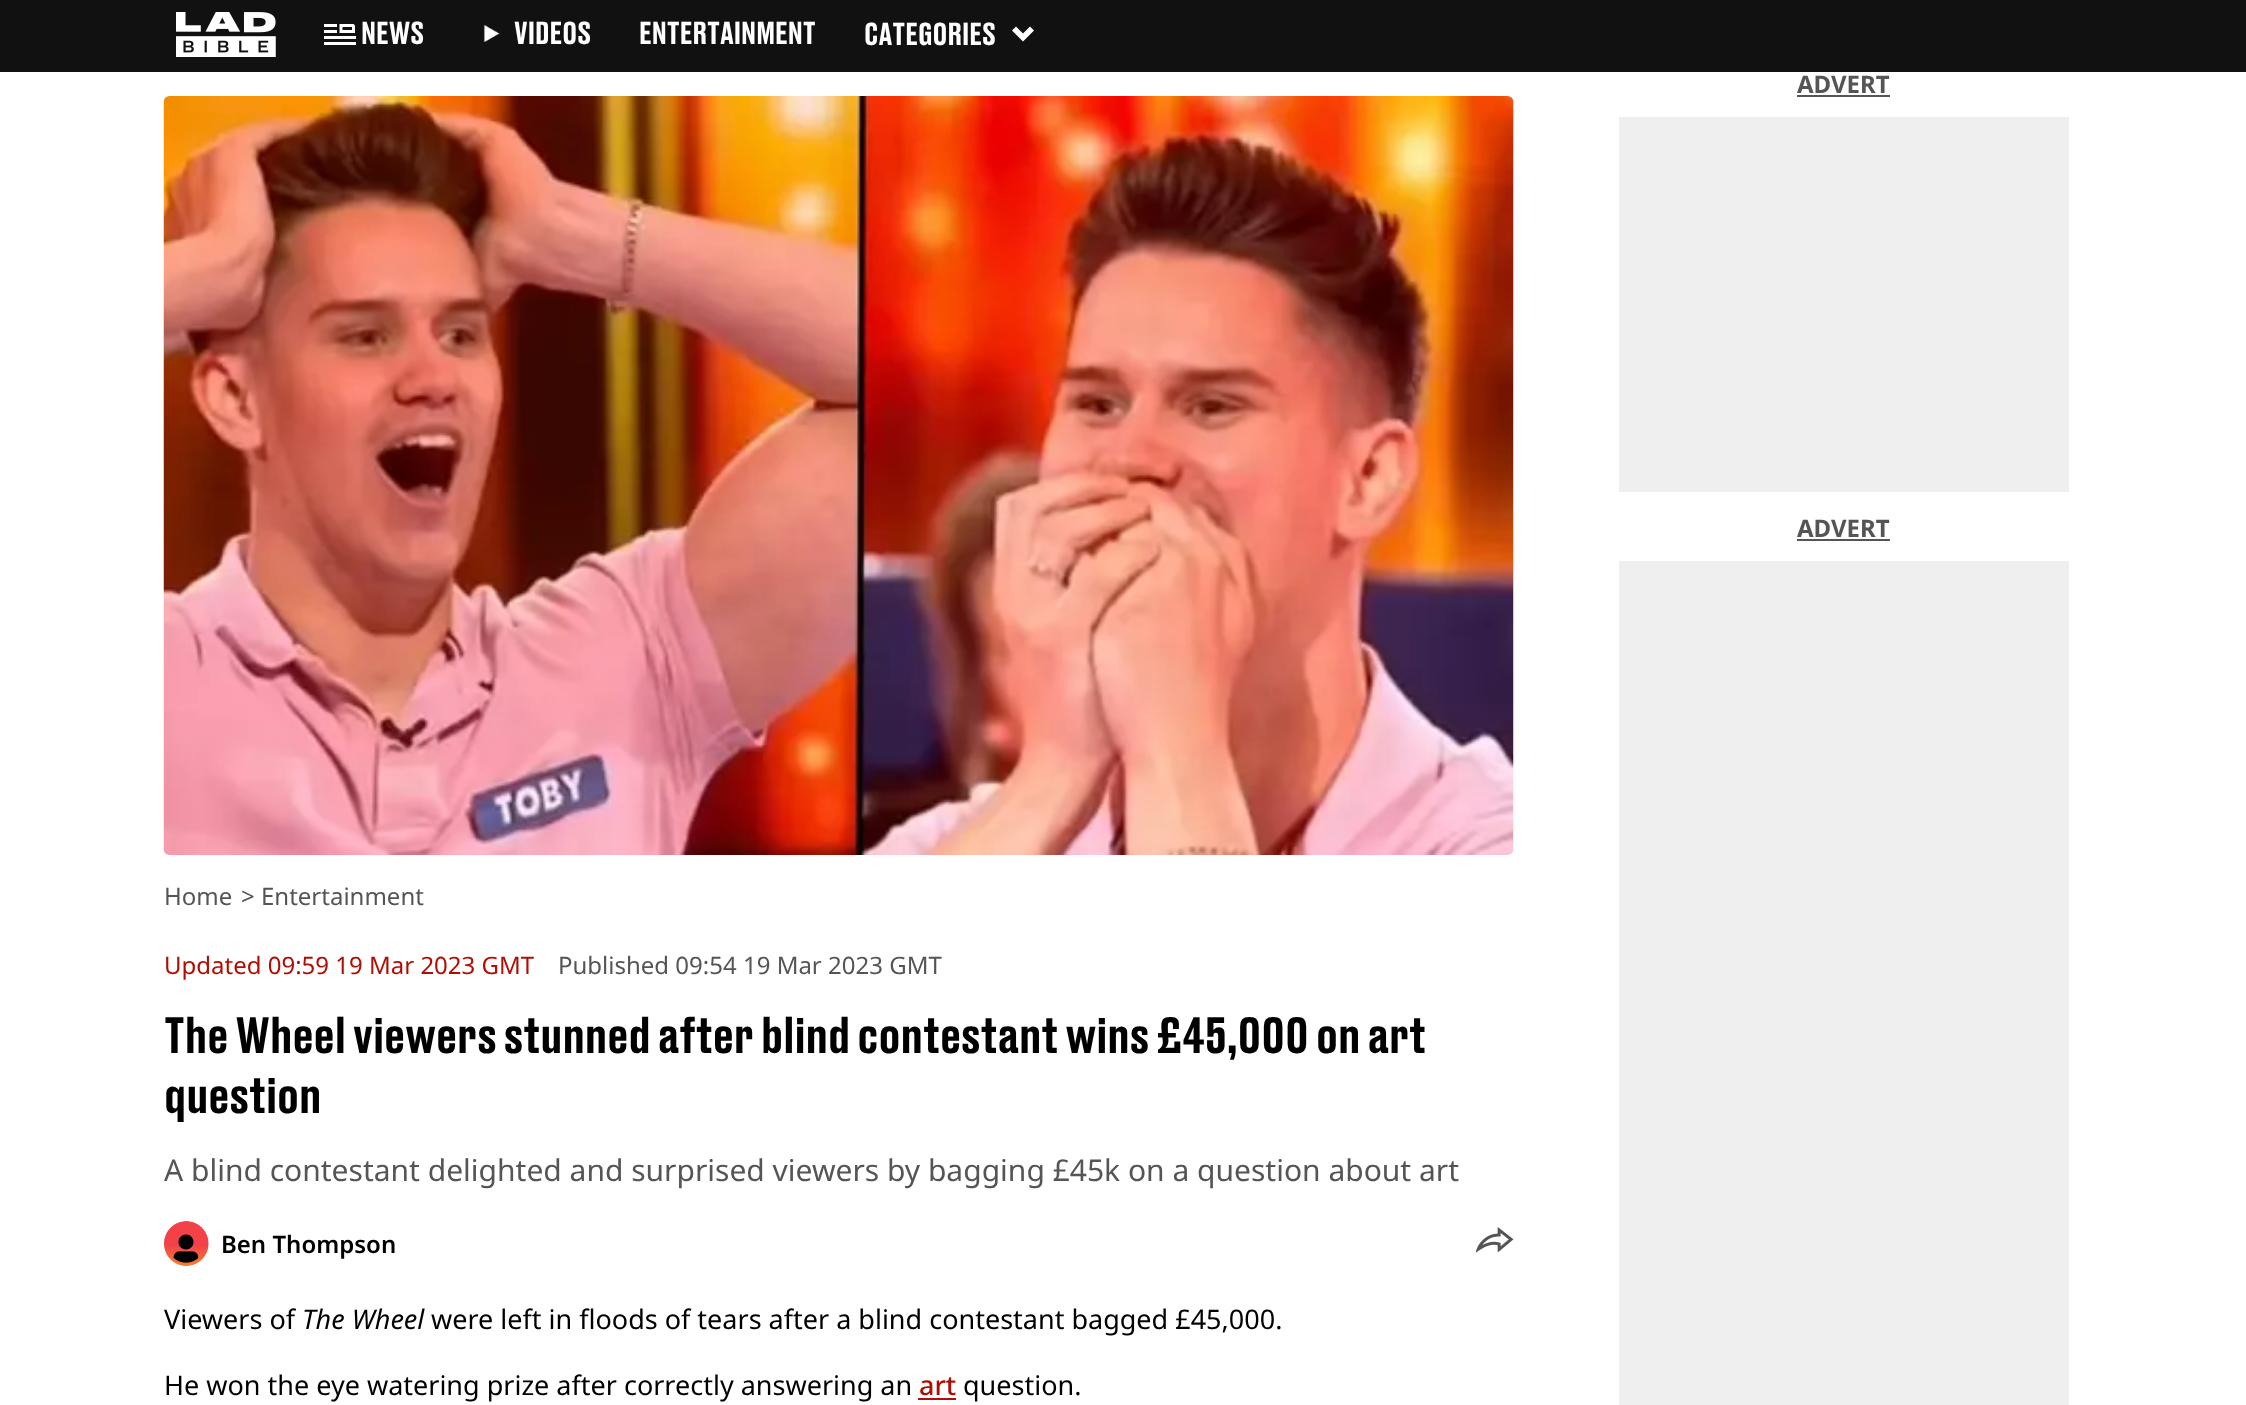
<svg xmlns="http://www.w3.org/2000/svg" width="2246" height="1405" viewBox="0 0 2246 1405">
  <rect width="100%" height="100%" fill="#ffffff"/>
  <rect x="0" y="0" width="2246" height="72" fill="#111111"/>
  <image x="176" y="12" width="100" height="45" href="img1.png"/>
  <rect x="324" y="36" width="32" height="3" fill="#ffffff"/>
  <rect x="324" y="42" width="32" height="3" fill="#ffffff"/>
  <rect x="324" y="24" width="13" height="3" fill="#ffffff"/>
  <rect x="324" y="30" width="13" height="3" fill="#ffffff"/>
  <path d="M341 25.5H353L353.5 26V31.5H341Z" fill="none" stroke="#ffffff" stroke-width="3"/>
  <text x="361" y="44" font-family="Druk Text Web" font-size="30" font-weight="500" fill="#ffffff">NEWS</text>
  <image x="483" y="24" width="17" height="18" href="img2.png"/>
  <text x="514" y="44" font-family="Druk Text Web" font-size="30" font-weight="500" fill="#ffffff">VIDEOS</text>
  <text x="639" y="44" font-family="Druk Text Web" font-size="30" font-weight="500" fill="#ffffff">ENTERTAINMENT</text>
  <text x="864" y="45" font-family="Druk Text Web" font-size="30" font-weight="500" fill="#ffffff">CATEGORIES</text>
  <path d="M1023 33.5L1030 26.5L1034 30.5L1023 41.5L1012 30.5L1016 26.5Z" fill="#ffffff"/>
  <text x="1797" y="93" font-family="Noto Sans" font-size="24" font-weight="bold" fill="#555555">ADVERT</text>
  <rect x="1797" y="95" width="93" height="2" fill="#555555"/>
  <rect x="1619" y="117" width="450" height="375" fill="#efefef"/>
  <text x="1797" y="537" font-family="Noto Sans" font-size="24" font-weight="bold" fill="#555555">ADVERT</text>
  <rect x="1797" y="539" width="93" height="2" fill="#555555"/>
  <rect x="1619" y="561" width="450" height="844" fill="#efefef"/>
  <image x="163" y="96" width="1351" height="759" href="img3.png"/>
  <text x="164" y="905" font-family="Noto Sans" font-size="24" fill="#555555">Home</text>
  <text x="241" y="905" font-family="Noto Sans" font-size="24" fill="#555555">&gt; Entertainment</text>
  <text x="164" y="974" font-family="Noto Sans" font-size="24" fill="#b00e04">Updated 09:59 19 Mar 2023 GMT</text>
  <text x="558" y="974" font-family="Noto Sans" font-size="24" fill="#555555">Published 09:54 19 Mar 2023 GMT</text>
  <text x="164" y="1053" font-family="Druk Text Web" font-size="48" font-weight="500" fill="#000000">The Wheel viewers stunned after blind contestant wins £45,000 on art</text>
  <text x="164" y="1113" font-family="Druk Text Web" font-size="48" font-weight="500" fill="#000000">question</text>
  <text x="164" y="1181" font-family="Noto Sans" font-size="30" fill="#555555">A blind contestant delighted and surprised viewers by bagging £45k on a question about art</text>
  <image x="164" y="1221" width="45" height="45" href="img4.png"/>
  <text x="221" y="1253" font-family="Noto Sans" font-size="24" font-weight="600" fill="#000000">Ben Thompson</text>
  <image x="1476" y="1227" width="38" height="26" href="img5.png"/>
  <text x="164" y="1329" font-family="Noto Sans" font-size="27" fill="#000000">Viewers of</text>
  <text x="302" y="1329" font-family="Noto Sans" font-size="27" font-style="italic" fill="#000000">The Wheel</text>
  <text x="431" y="1329" font-family="Noto Sans" font-size="27" fill="#000000">were left in floods of tears after a blind contestant bagged £45,000.</text>
  <text x="164" y="1395" font-family="Noto Sans" font-size="27" fill="#000000">He won the eye watering prize after correctly answering an</text>
  <text x="919" y="1395" font-family="Noto Sans" font-size="27" font-weight="500" fill="#b00e04">art</text>
  <rect x="918" y="1398" width="38" height="2" fill="#b00e04"/>
  <text x="963" y="1395" font-family="Noto Sans" font-size="27" fill="#000000">question.</text>
</svg>
